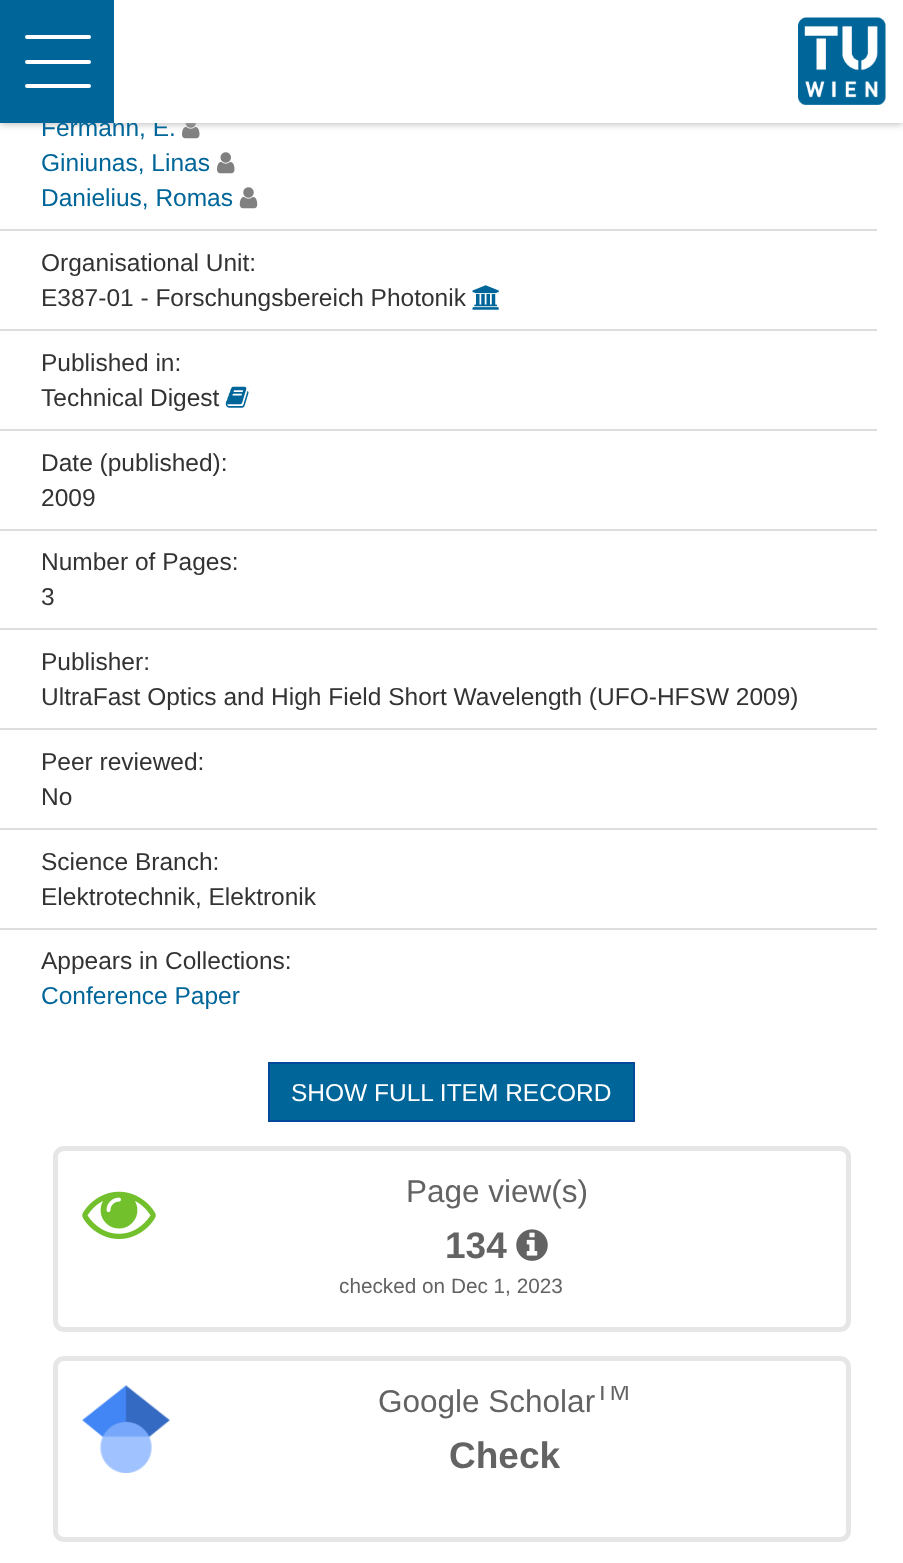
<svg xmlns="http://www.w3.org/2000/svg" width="903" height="1563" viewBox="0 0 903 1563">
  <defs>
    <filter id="blur1" x="-50%" y="-200%" width="200%" height="500%"><feGaussianBlur stdDeviation="4.5"/></filter>
    <clipPath id="clip1"><rect x="187" y="1386" width="634" height="96"/></clipPath>
  </defs>
  <rect width="100%" height="100%" fill="#ffffff"/>
  <image x="182" y="123" width="18" height="16" href="img2.png"/>
  <rect x="0" y="0" width="903" height="123" fill="#aaaaaa" filter="url(#blur1)"/>
  <text x="41" y="136" font-family="Liberation Sans" font-size="24.5" fill="#006699">Fermann, E.</text>
  <rect x="114" y="0" width="789" height="123" fill="#ffffff"/>
  <rect x="0" y="0" width="114" height="123" fill="#006699"/>
  <rect x="25" y="35" width="66" height="4" rx="2" fill="#ffffff"/>
  <rect x="25" y="60" width="66" height="4" rx="2" fill="#ffffff"/>
  <rect x="25" y="84" width="66" height="4" rx="2" fill="#ffffff"/>
  <image x="798" y="17" width="88" height="88" href="img1.png"/>
  <text x="41" y="171" font-family="Liberation Sans" font-size="24.5" fill="#006699">Giniunas, Linas</text>
  <image x="217" y="152" width="18" height="22" href="img3.png"/>
  <text x="41" y="206" font-family="Liberation Sans" font-size="24.5" fill="#006699">Danielius, Romas</text>
  <image x="239" y="187" width="19" height="22" href="img4.png"/>
  <rect x="0" y="229" width="877" height="2" fill="#dddddd"/>
  <text x="41" y="271" font-family="Liberation Sans" font-size="24.5" fill="#333333">Organisational Unit:</text>
  <text x="41" y="306" font-family="Liberation Sans" font-size="24.5" fill="#333333">E387-01 - Forschungsbereich Photonik</text>
  <image x="472" y="285" width="27" height="25" href="img5.png"/>
  <rect x="0" y="329" width="877" height="2" fill="#dddddd"/>
  <text x="41" y="371" font-family="Liberation Sans" font-size="24.5" fill="#333333">Published in:</text>
  <text x="41" y="406" font-family="Liberation Sans" font-size="24.5" fill="#333333">Technical Digest</text>
  <image x="225" y="386" width="24" height="22" href="img6.png"/>
  <rect x="0" y="429" width="877" height="2" fill="#dddddd"/>
  <text x="41" y="471" font-family="Liberation Sans" font-size="24.5" fill="#333333">Date (published):</text>
  <text x="41" y="506" font-family="Liberation Sans" font-size="24.5" fill="#333333">2009</text>
  <rect x="0" y="529" width="877" height="2" fill="#dddddd"/>
  <text x="41" y="570" font-family="Liberation Sans" font-size="24.5" fill="#333333">Number of Pages:</text>
  <text x="41" y="605" font-family="Liberation Sans" font-size="24.5" fill="#333333">3</text>
  <rect x="0" y="628" width="877" height="2" fill="#dddddd"/>
  <text x="41" y="670" font-family="Liberation Sans" font-size="24.5" fill="#333333">Publisher:</text>
  <text x="41" y="705" font-family="Liberation Sans" font-size="24.5" fill="#333333">UltraFast Optics and High Field Short Wavelength (UFO-HFSW 2009)</text>
  <rect x="0" y="728" width="877" height="2" fill="#dddddd"/>
  <text x="41" y="770" font-family="Liberation Sans" font-size="24.5" fill="#333333">Peer reviewed:</text>
  <text x="41" y="805" font-family="Liberation Sans" font-size="24.5" fill="#333333">No</text>
  <rect x="0" y="828" width="877" height="2" fill="#dddddd"/>
  <text x="41" y="870" font-family="Liberation Sans" font-size="24.5" fill="#333333">Science Branch:</text>
  <text x="41" y="905" font-family="Liberation Sans" font-size="24.5" fill="#333333">Elektrotechnik, Elektronik</text>
  <rect x="0" y="928" width="877" height="2" fill="#dddddd"/>
  <text x="41" y="969" font-family="Liberation Sans" font-size="24.5" fill="#333333">Appears in Collections:</text>
  <text x="41" y="1004" font-family="Liberation Sans" font-size="24.5" fill="#006699">Conference Paper</text>
  <rect x="269" y="1063" width="365" height="58" fill="#006699" stroke="#034899" stroke-width="2"/>
  <text x="291" y="1101" font-family="Liberation Sans" font-size="24.5" fill="#ffffff">SHOW FULL ITEM RECORD</text>
  <rect x="55.5" y="1148.5" width="793" height="181" rx="8.5" fill="none" stroke="#e6e6e6" stroke-width="5"/>
  <image x="82" y="1191" width="74" height="48" href="img7.png"/>
  <text x="406" y="1202" font-family="Liberation Sans" font-size="31.5" fill="#646363">Page view(s)</text>
  <text x="445" y="1258" font-family="Liberation Sans" font-size="37" font-weight="bold" fill="#646363">134</text>
  <image x="516" y="1229" width="32" height="32" href="img8.png"/>
  <text x="339" y="1293" font-family="Liberation Sans" font-size="20.75" fill="#646363">checked on Dec 1, 2023</text>
  <rect x="55.5" y="1358.5" width="793" height="181" rx="8.5" fill="none" stroke="#e6e6e6" stroke-width="5"/>
  <image x="82" y="1385" width="88" height="88" href="img9.png"/>
  <text x="378" y="1412" font-family="Liberation Sans" font-size="31.5" fill="#646363">Google Scholar</text>
  <g clip-path="url(#clip1)">
    <text x="595" y="1400" font-family="Liberation Sans" font-size="24" fill="#646363">TM</text>
  </g>
  <text x="449" y="1468" font-family="Liberation Sans" font-size="37" font-weight="bold" fill="#646363">Check</text>
</svg>
